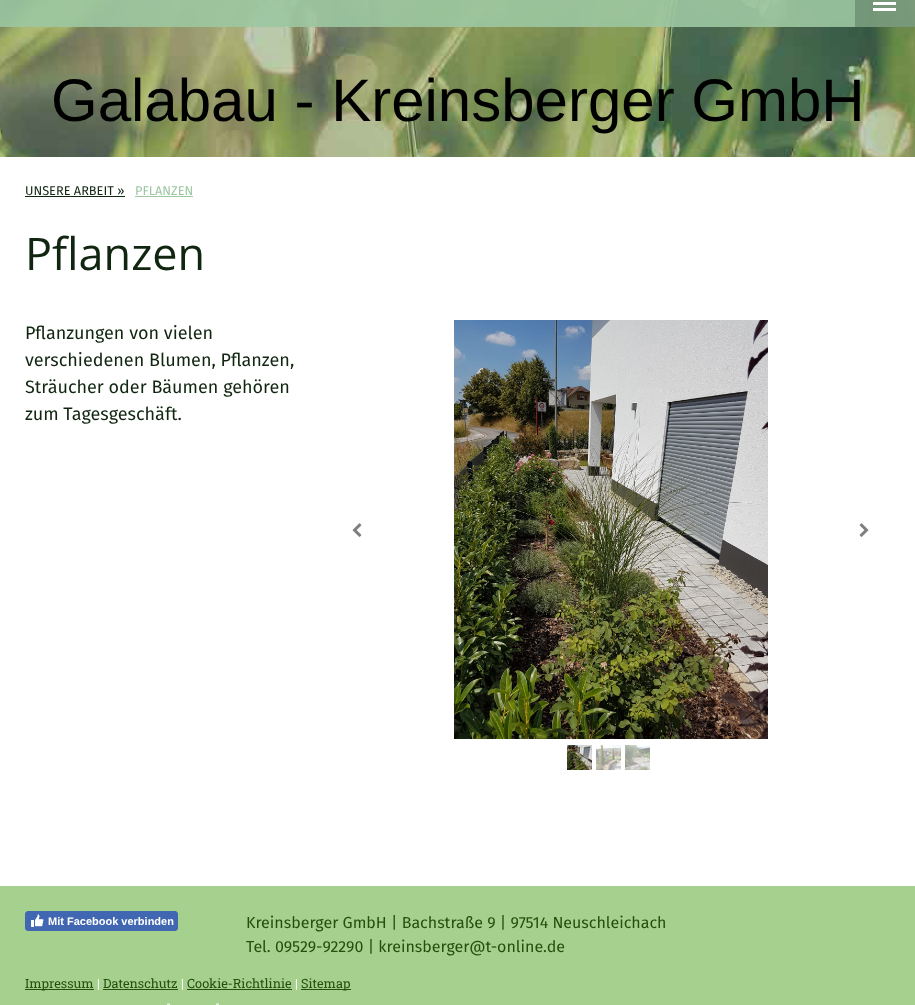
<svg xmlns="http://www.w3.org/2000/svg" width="915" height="1005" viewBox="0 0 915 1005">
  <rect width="100%" height="100%" fill="#ffffff"/>
  <image x="0" y="0" width="915" height="157" href="img1.png"/>
  <rect x="0" y="0" width="915" height="27" fill="#9cc7a1" fill-opacity="0.9"/>
  <rect x="855" y="0" width="60" height="27" fill="#000000" fill-opacity="0.2"/>
  <rect x="873" y="2" width="23" height="3" fill="#ffffff"/>
  <rect x="873" y="8" width="23" height="3" fill="#ffffff"/>
  <text x="51" y="121" font-family="Liberation Sans" font-size="60" fill="#000000">Galabau - Kreinsberger GmbH</text>
  <text x="25" y="195" font-family="Fira Sans" font-size="12.75" fill="#112611">UNSERE ARBEIT »</text>
  <rect x="25" y="196" width="100" height="1" fill="#112611"/>
  <text x="135" y="195" font-family="Fira Sans" font-size="12.75" fill="#9cc7a1">PFLANZEN</text>
  <rect x="135" y="196" width="58" height="1" fill="#9cc7a1"/>
  <text x="25" y="270" font-family="Open Sans" font-size="45" fill="#112611">Pflanzen</text>
  <text x="25" y="339" font-family="Fira Sans" font-size="18" fill="#112611">Pflanzungen von vielen</text>
  <text x="25" y="366" font-family="Fira Sans" font-size="18" fill="#112611">verschiedenen Blumen, Pflanzen,</text>
  <text x="25" y="393" font-family="Fira Sans" font-size="18" fill="#112611">Sträucher oder Bäumen gehören</text>
  <text x="25" y="420" font-family="Fira Sans" font-size="18" fill="#112611">zum Tagesgeschäft.</text>
  <image x="454" y="320" width="314" height="419" href="img2.png"/>
  <image x="352" y="523" width="10" height="14" href="img3.png"/>
  <image x="859" y="523" width="10" height="14" href="img4.png"/>
  <image x="567" y="745" width="25" height="25" href="img5.png"/>
  <image x="596" y="745" width="25" height="25" href="img6.png"/>
  <image x="625" y="745" width="25" height="25" href="img7.png"/>
  <rect x="0" y="886" width="915" height="119" fill="#a6d08d"/>
  <rect x="25.5" y="911.5" width="152" height="19" rx="2.5" fill="#4267b2" stroke="#4267b2"/>
  <image x="31" y="914" width="13" height="13" href="img8.png"/>
  <text x="48" y="925" font-family="Liberation Sans" font-size="11" font-weight="bold" fill="#ffffff">Mit Facebook verbinden</text>
  <text x="246" y="928" font-family="Fira Sans" font-size="16" fill="#264f0e">Kreinsberger GmbH | Bachstraße 9 | 97514 Neuschleichach</text>
  <text x="246" y="952" font-family="Fira Sans" font-size="16" fill="#264f0e">Tel. 09529-92290 | kreinsberger@t-online.de</text>
  <rect x="25" y="989" width="69" height="1" fill="#264f0e"/>
  <text x="25" y="988" font-family="Roboto Slab" font-size="12.75" fill="#264f0e">Impressum</text>
  <text x="97" y="988" font-family="Roboto Slab" font-size="12.75" fill="#ffffff">|</text>
  <text x="103" y="988" font-family="Roboto Slab" font-size="12.75" fill="#264f0e">Datenschutz</text>
  <rect x="103" y="989" width="75" height="1" fill="#264f0e"/>
  <text x="181" y="988" font-family="Roboto Slab" font-size="12.75" fill="#ffffff">|</text>
  <text x="187" y="988" font-family="Roboto Slab" font-size="12.75" fill="#264f0e">Cookie-Richtlinie</text>
  <rect x="187" y="989" width="105" height="1" fill="#264f0e"/>
  <text x="295" y="988" font-family="Roboto Slab" font-size="12.75" fill="#ffffff">|</text>
  <rect x="301" y="989" width="50" height="1" fill="#264f0e"/>
  <text x="301" y="988" font-family="Roboto Slab" font-size="12.75" fill="#264f0e">Sitemap</text>
  <text x="166" y="1008" font-family="Roboto Slab" font-size="12.75" fill="#ffffff">-</text>
  <text x="215" y="1008" font-family="Roboto Slab" font-size="12.75" fill="#ffffff">-</text>
</svg>
